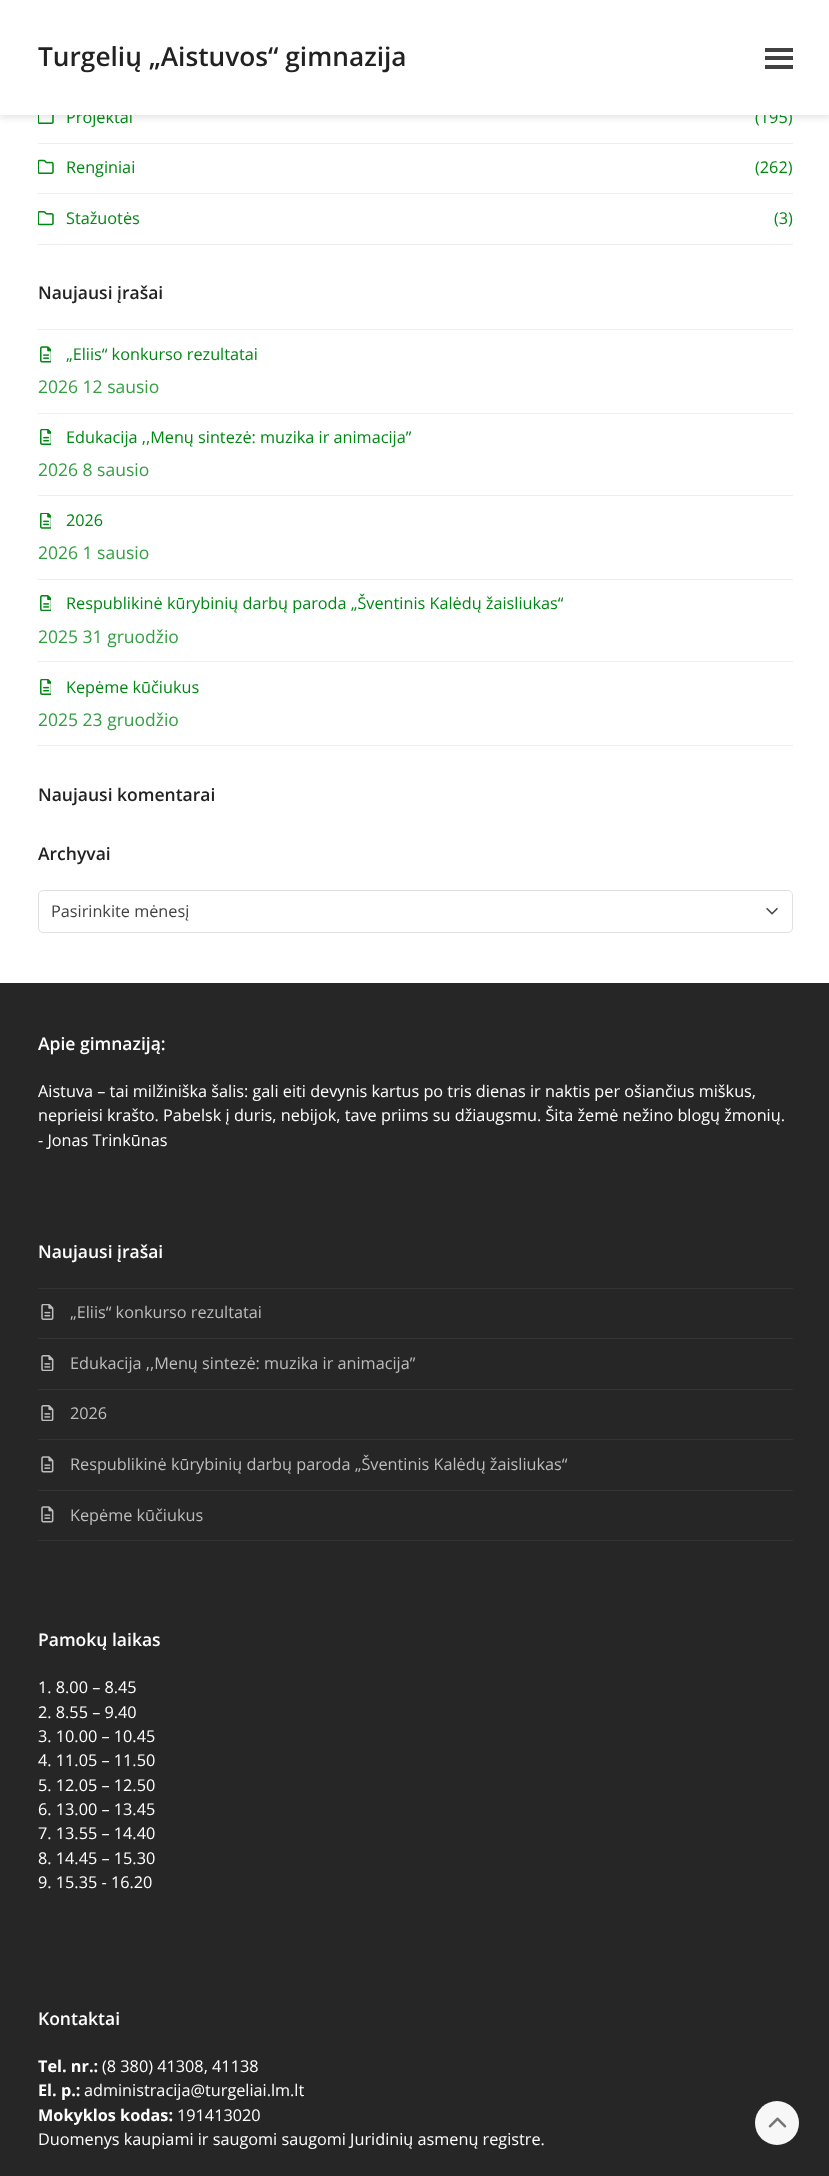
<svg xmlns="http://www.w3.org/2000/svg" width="829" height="2176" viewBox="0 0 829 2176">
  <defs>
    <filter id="blur1" x="-50%" y="-200%" width="200%" height="500%"><feGaussianBlur stdDeviation="3"/></filter>
  </defs>
  <rect width="100%" height="100%" fill="#ffffff"/>
  <image x="38" y="115" width="16" height="9" href="img1.png"/>
  <rect x="0" y="3" width="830" height="115" fill="#000000" fill-opacity="0.1" filter="url(#blur1)"/>
  <text x="66" y="123" font-family="Open Sans" font-size="16.25" fill="#008714">Projektai</text>
  <text x="755" y="123" font-family="Open Sans" font-size="16.25" fill="#008714">(195)</text>
  <rect x="0" y="0" width="829" height="115" fill="#ffffff"/>
  <text x="38" y="66" font-family="Open Sans" font-size="26.25" font-weight="600" fill="#222222">Turgelių „Aistuvos“ gimnazija</text>
  <rect x="765" y="56" width="28" height="4" fill="#424242"/>
  <rect x="765" y="48" width="28" height="4" fill="#424242"/>
  <rect x="765" y="65" width="28" height="4" fill="#424242"/>
  <rect x="38" y="143" width="755" height="1" fill="#eeeeee"/>
  <rect x="38" y="193" width="755" height="1" fill="#eeeeee"/>
  <image x="38" y="159" width="16" height="15" href="img2.png"/>
  <text x="66" y="173" font-family="Open Sans" font-size="16.25" fill="#008714">Renginiai</text>
  <text x="755" y="173" font-family="Open Sans" font-size="16.25" fill="#008714">(262)</text>
  <rect x="38" y="244" width="755" height="1" fill="#eeeeee"/>
  <image x="38" y="211" width="16" height="15" href="img3.png"/>
  <text x="66" y="224" font-family="Open Sans" font-size="16.25" fill="#008714">Stažuotės</text>
  <text x="774" y="224" font-family="Open Sans" font-size="16.25" fill="#008714">(3)</text>
  <text x="38" y="299" font-family="Open Sans" font-size="17.5" font-weight="600" fill="#222222">Naujausi įrašai</text>
  <rect x="38" y="329" width="755" height="1" fill="#eeeeee"/>
  <rect x="38" y="413" width="755" height="1" fill="#eeeeee"/>
  <image x="40" y="346" width="11" height="17" href="img4.png"/>
  <text x="66" y="360" font-family="Open Sans" font-size="16.25" fill="#008714">„Eliis“ konkurso rezultatai</text>
  <text x="38" y="393" font-family="Open Sans" font-size="17.5" fill="#339f43">2026 12 sausio</text>
  <rect x="38" y="495" width="755" height="1" fill="#eeeeee"/>
  <image x="40" y="429" width="11" height="16" href="img5.png"/>
  <text x="66" y="443" font-family="Open Sans" font-size="16.25" fill="#008714">Edukacija ,,Menų sintezė: muzika ir animacija”</text>
  <text x="38" y="476" font-family="Open Sans" font-size="17.5" fill="#339f43">2026 8 sausio</text>
  <rect x="38" y="579" width="755" height="1" fill="#eeeeee"/>
  <image x="40" y="513" width="11" height="16" href="img6.png"/>
  <text x="66" y="526" font-family="Open Sans" font-size="16.25" fill="#008714">2026</text>
  <text x="38" y="559" font-family="Open Sans" font-size="17.5" fill="#339f43">2026 1 sausio</text>
  <rect x="38" y="661" width="755" height="1" fill="#eeeeee"/>
  <image x="40" y="595" width="11" height="16" href="img7.png"/>
  <text x="66" y="609" font-family="Open Sans" font-size="16.25" fill="#008714">Respublikinė kūrybinių darbų paroda „Šventinis Kalėdų žaisliukas“</text>
  <text x="38" y="643" font-family="Open Sans" font-size="17.5" fill="#339f43">2025 31 gruodžio</text>
  <rect x="38" y="745" width="755" height="1" fill="#eeeeee"/>
  <image x="40" y="679" width="11" height="16" href="img5.png"/>
  <text x="66" y="693" font-family="Open Sans" font-size="16.25" fill="#008714">Kepėme kūčiukus</text>
  <text x="38" y="726" font-family="Open Sans" font-size="17.5" fill="#339f43">2025 23 gruodžio</text>
  <text x="38" y="801" font-family="Open Sans" font-size="17.5" font-weight="600" fill="#222222">Naujausi komentarai</text>
  <text x="38" y="860" font-family="Open Sans" font-size="17.5" font-weight="600" fill="#222222">Archyvai</text>
  <rect x="38.5" y="890.5" width="754" height="42" rx="4.5" fill="none" stroke="#e0e0e0"/>
  <text x="51" y="917" font-family="Open Sans" font-size="16.25" fill="#424242">Pasirinkite mėnesį</text>
  <image x="766" y="907" width="12" height="8" href="img8.png"/>
  <rect x="0" y="983" width="829" height="1193" fill="#262626"/>
  <text x="38" y="1050" font-family="Open Sans" font-size="17.5" font-weight="600" fill="#ffffff">Apie gimnaziją:</text>
  <text x="38" y="1097" font-family="Open Sans" font-size="16.25" fill="#ffffff">Aistuva – tai milžiniška šalis: gali eiti devynis kartus po tris dienas ir naktis per ošiančius miškus,</text>
  <text x="38" y="1121" font-family="Open Sans" font-size="16.25" fill="#ffffff">neprieisi krašto. Pabelsk į duris, nebijok, tave priims su džiaugsmu. Šita žemė nežino blogų žmonių.</text>
  <text x="38" y="1146" font-family="Open Sans" font-size="16.25" fill="#ffffff">- Jonas Trinkūnas</text>
  <text x="38" y="1258" font-family="Open Sans" font-size="17.5" font-weight="600" fill="#ffffff">Naujausi įrašai</text>
  <rect x="38" y="1288" width="755" height="1" fill="#333333"/>
  <rect x="38" y="1338" width="755" height="1" fill="#333333"/>
  <image x="41" y="1304" width="13" height="16" href="img9.png"/>
  <text x="70" y="1318" font-family="Open Sans" font-size="16.25" fill="#bdbdbd">„Eliis“ konkurso rezultatai</text>
  <rect x="38" y="1389" width="755" height="1" fill="#333333"/>
  <image x="41" y="1355" width="13" height="16" href="img10.png"/>
  <text x="70" y="1369" font-family="Open Sans" font-size="16.25" fill="#bdbdbd">Edukacija ,,Menų sintezė: muzika ir animacija”</text>
  <rect x="38" y="1439" width="755" height="1" fill="#333333"/>
  <image x="41" y="1405" width="13" height="16" href="img10.png"/>
  <text x="70" y="1419" font-family="Open Sans" font-size="16.25" fill="#bdbdbd">2026</text>
  <rect x="38" y="1490" width="755" height="1" fill="#333333"/>
  <image x="41" y="1456" width="13" height="17" href="img11.png"/>
  <text x="70" y="1470" font-family="Open Sans" font-size="16.25" fill="#bdbdbd">Respublikinė kūrybinių darbų paroda „Šventinis Kalėdų žaisliukas“</text>
  <rect x="38" y="1540" width="755" height="1" fill="#333333"/>
  <image x="41" y="1506" width="13" height="17" href="img11.png"/>
  <text x="70" y="1521" font-family="Open Sans" font-size="16.25" fill="#bdbdbd">Kepėme kūčiukus</text>
  <text x="38" y="1646" font-family="Open Sans" font-size="17.5" font-weight="600" fill="#ffffff">Pamokų laikas</text>
  <text x="38" y="1693" font-family="Open Sans" font-size="16.25" fill="#ffffff">1. 8.00 – 8.45</text>
  <text x="38" y="1718" font-family="Open Sans" font-size="16.25" fill="#ffffff">2. 8.55 – 9.40</text>
  <text x="38" y="1742" font-family="Open Sans" font-size="16.25" fill="#ffffff">3. 10.00 – 10.45</text>
  <text x="38" y="1766" font-family="Open Sans" font-size="16.25" fill="#ffffff">4. 11.05 – 11.50</text>
  <text x="38" y="1791" font-family="Open Sans" font-size="16.25" fill="#ffffff">5. 12.05 – 12.50</text>
  <text x="38" y="1815" font-family="Open Sans" font-size="16.25" fill="#ffffff">6. 13.00 – 13.45</text>
  <text x="38" y="1839" font-family="Open Sans" font-size="16.25" fill="#ffffff">7. 13.55 – 14.40</text>
  <text x="38" y="1864" font-family="Open Sans" font-size="16.25" fill="#ffffff">8. 14.45 – 15.30</text>
  <text x="38" y="1888" font-family="Open Sans" font-size="16.25" fill="#ffffff">9. 15.35 - 16.20</text>
  <text x="38" y="2025" font-family="Open Sans" font-size="17.5" font-weight="600" fill="#ffffff">Kontaktai</text>
  <text x="38" y="2072" font-family="Open Sans" font-size="16.25" font-weight="bold" fill="#ffffff">Tel. nr.:</text>
  <text x="102" y="2072" font-family="Open Sans" font-size="16.25" fill="#ffffff">(8 380) 41308, 41138</text>
  <text x="38" y="2096" font-family="Open Sans" font-size="16.25" font-weight="bold" fill="#ffffff">El. p.:</text>
  <text x="84" y="2096" font-family="Open Sans" font-size="16.25" fill="#ffffff">administracija@turgeliai.lm.lt</text>
  <text x="38" y="2121" font-family="Open Sans" font-size="16.25" font-weight="bold" fill="#ffffff">Mokyklos kodas:</text>
  <text x="177" y="2121" font-family="Open Sans" font-size="16.25" fill="#ffffff">191413020</text>
  <text x="38" y="2145" font-family="Open Sans" font-size="16.25" fill="#ffffff">Duomenys kaupiami ir saugomi saugomi Juridinių asmenų registre.</text>
  <circle cx="777" cy="2123" r="22" fill="#f7f7f7"/>
  <image x="768" y="2117" width="19" height="11" href="img12.png"/>
</svg>
